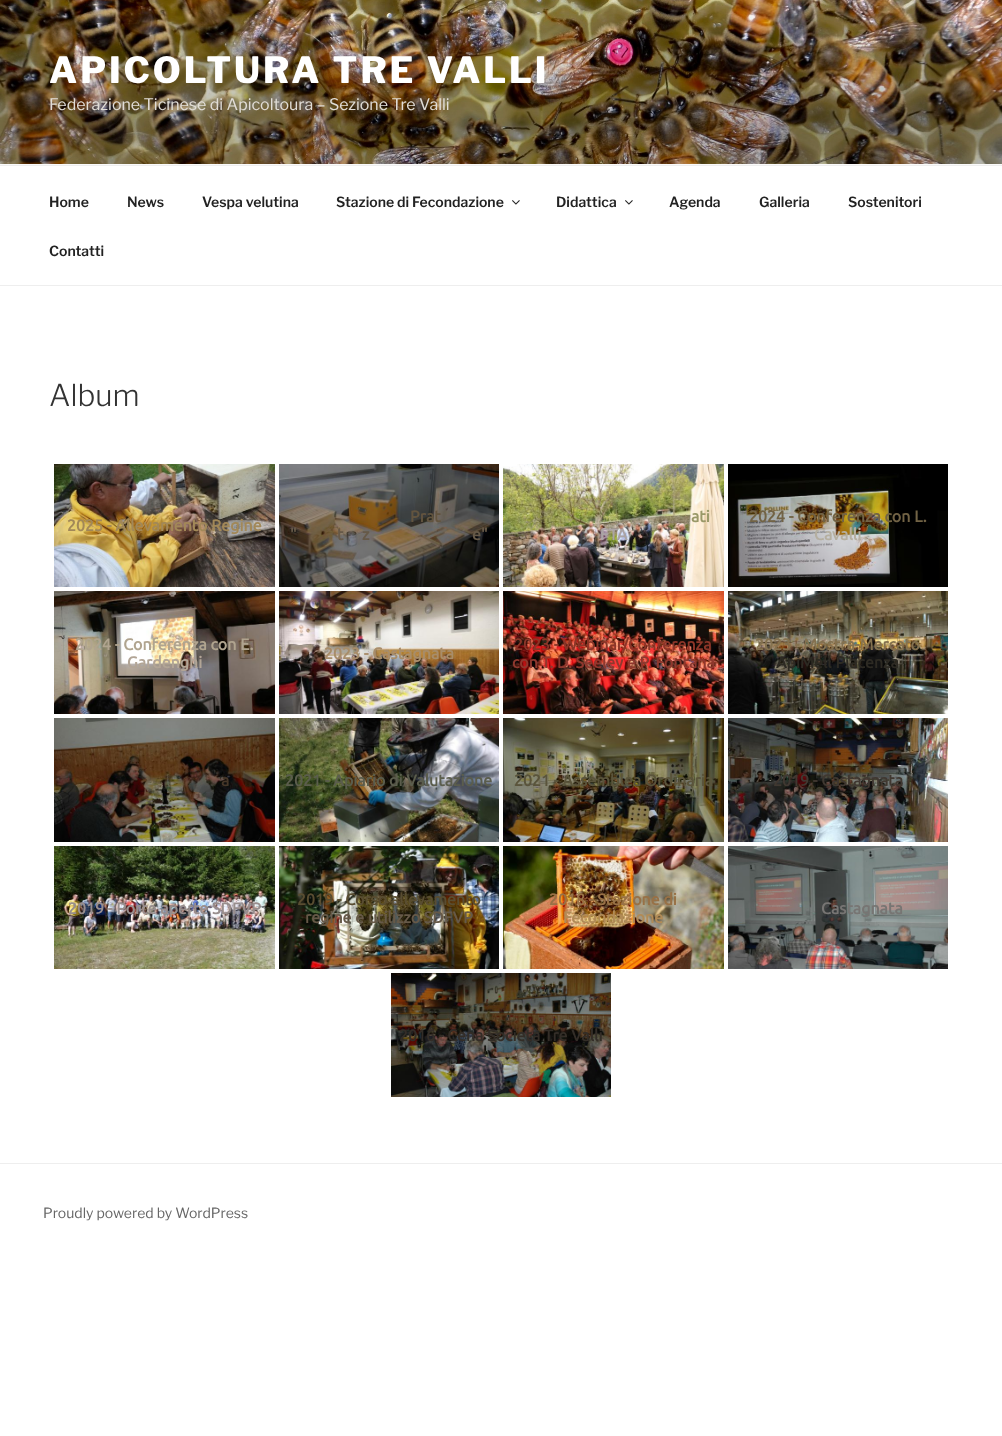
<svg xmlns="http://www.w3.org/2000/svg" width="1002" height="1436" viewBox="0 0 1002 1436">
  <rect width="100%" height="100%" fill="#ffffff"/>
  <rect x="0" y="164" width="1002" height="1" fill="#fafafa"/>
  <image x="0" y="0" width="1002" height="164" href="img1.png"/>
  <text x="49" y="83" font-family="'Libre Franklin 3'" font-size="36" font-weight="100" letter-spacing="2.9" fill="#ffffff">APICOLTURA TRE VALLI</text>
  <text x="49" y="110" font-family="Libre Franklin" font-size="16" font-weight="100" fill="#e1ddd7">Federazione Ticinese di Apicoltoura – Sezione Tre Valli</text>
  <rect x="0" y="165" width="1002" height="1" fill="#eeeeee"/>
  <rect x="0" y="285" width="1002" height="1" fill="#eeeeee"/>
  <text x="49" y="207" font-family="'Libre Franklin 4'" font-size="14" font-weight="100" fill="#222222">Home</text>
  <text x="127" y="207" font-family="'Libre Franklin 4'" font-size="14" font-weight="100" fill="#222222">News</text>
  <text x="202" y="207" font-family="'Libre Franklin 4'" font-size="14" font-weight="100" fill="#222222">Vespa velutina</text>
  <text x="336" y="207" font-family="'Libre Franklin 4'" font-size="14" font-weight="100" fill="#222222">Stazione di Fecondazione</text>
  <image x="512" y="200" width="8" height="5" href="img2.png"/>
  <text x="556" y="207" font-family="'Libre Franklin 4'" font-size="14" font-weight="100" fill="#222222">Didattica</text>
  <image x="625" y="200" width="8" height="5" href="img2.png"/>
  <text x="669" y="207" font-family="'Libre Franklin 4'" font-size="14" font-weight="100" fill="#222222">Agenda</text>
  <text x="759" y="207" font-family="'Libre Franklin 4'" font-size="14" font-weight="100" fill="#222222">Galleria</text>
  <text x="848" y="207" font-family="'Libre Franklin 4'" font-size="14" font-weight="100" fill="#222222">Sostenitori</text>
  <text x="49" y="256" font-family="'Libre Franklin 4'" font-size="14" font-weight="100" fill="#222222">Contatti</text>
  <text x="49" y="406" font-family="'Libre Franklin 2'" font-size="30" font-weight="100" fill="#333333">Album</text>
  <image x="54" y="464" width="221" height="123" href="img3.png"/>
  <text x="67" y="531" font-family="Ubuntu" font-size="16" font-weight="bold" fill="#a28858">2025 - Allevamento Regine</text>
  <image x="279" y="464" width="220" height="123" href="img4.png"/>
  <text x="410" y="522" font-family="Ubuntu" font-size="16" font-weight="bold" fill="#62543f">Prat</text>
  <text x="290" y="540" font-family="Ubuntu" font-size="16" font-weight="bold" fill="#665948">"</text>
  <text x="337" y="540" font-family="Ubuntu" font-size="16" font-weight="bold" fill="#665948">t</text>
  <text x="362" y="540" font-family="Ubuntu" font-size="16" font-weight="bold" fill="#665948">z</text>
  <text x="472" y="540" font-family="Ubuntu" font-size="16" font-weight="bold" fill="#665948">e"</text>
  <image x="503" y="464" width="221" height="123" href="img5.png"/>
  <text x="691" y="522" font-family="Ubuntu" font-size="16" font-weight="bold" fill="#999868">ati</text>
  <text x="600" y="540" font-family="Ubuntu" font-size="16" font-weight="bold" fill="#aba4a5">FTA</text>
  <image x="728" y="464" width="220" height="123" href="img6.png"/>
  <text x="749" y="522" font-family="Ubuntu" font-size="16" font-weight="bold" fill="#726345">2024 - Conferenza con L.</text>
  <text x="814" y="540" font-family="Ubuntu" font-size="16" font-weight="bold" fill="#b5afa0">Cavalli</text>
  <image x="54" y="591" width="221" height="123" href="img7.png"/>
  <text x="75" y="650" font-family="Ubuntu" font-size="16" font-weight="bold" fill="#b0a48f">2024 - Conferenza con E.</text>
  <text x="127" y="668" font-family="Ubuntu" font-size="16" font-weight="bold" fill="#b2a596">Gardenghi</text>
  <image x="279" y="591" width="220" height="123" href="img8.png"/>
  <text x="324" y="659" font-family="Ubuntu" font-size="16" font-weight="bold" fill="#a88d6a">2023 - Castagnata</text>
  <image x="503" y="591" width="221" height="123" href="img9.png"/>
  <text x="514" y="650" font-family="Ubuntu" font-size="16" font-weight="bold" fill="#8b3528">2023 - Webinar/Conferenza</text>
  <text x="512" y="668" font-family="Ubuntu" font-size="16" font-weight="bold" fill="#8f382e">con T. D. Seeley e P. Fontana</text>
  <image x="728" y="591" width="220" height="123" href="img10.png"/>
  <text x="755" y="650" font-family="Ubuntu" font-size="16" font-weight="bold" fill="#84714f">2023 - Mostra-Mercato</text>
  <text x="776" y="668" font-family="Ubuntu" font-size="16" font-weight="bold" fill="#2d2a23">ApiMell Piacenza</text>
  <image x="54" y="718" width="221" height="124" href="img11.png"/>
  <text x="221" y="786" font-family="Ubuntu" font-size="16" font-weight="bold" fill="#453628">a</text>
  <image x="279" y="718" width="220" height="124" href="img12.png"/>
  <text x="285" y="786" font-family="Ubuntu" font-size="16" font-weight="bold" fill="#5b5d4d">2021 - Apiario di Valutazione</text>
  <image x="503" y="718" width="221" height="124" href="img13.png"/>
  <text x="514" y="786" font-family="Ubuntu" font-size="16" font-weight="bold" fill="#5a543b">2021 - Assemblea Ordinaria</text>
  <image x="728" y="718" width="220" height="124" href="img14.png"/>
  <text x="773" y="786" font-family="Ubuntu" font-size="16" font-weight="bold" fill="#403831">2019 - Castagnata</text>
  <image x="54" y="846" width="221" height="123" href="img15.png"/>
  <text x="68" y="914" font-family="Ubuntu" font-size="16" font-weight="bold" fill="#988e8d">2019 - Porte aperte SDFVP</text>
  <image x="279" y="846" width="220" height="123" href="img16.png"/>
  <text x="297" y="905" font-family="Ubuntu" font-size="16" font-weight="bold" fill="#594d31">2019 - Corso allevamento</text>
  <text x="305" y="923" font-family="Ubuntu" font-size="16" font-weight="bold" fill="#665948">regine e utilizzo SDFVP</text>
  <image x="503" y="846" width="221" height="123" href="img17.png"/>
  <text x="549" y="905" font-family="Ubuntu" font-size="16" font-weight="bold" fill="#987146">2018 - Stazione di</text>
  <text x="563" y="923" font-family="Ubuntu" font-size="16" font-weight="bold" fill="#b18b57">Fecondazione</text>
  <image x="728" y="846" width="220" height="123" href="img18.png"/>
  <text x="821" y="914" font-family="Ubuntu" font-size="16" font-weight="bold" fill="#777573">Castagnata</text>
  <image x="391" y="973" width="220" height="124" href="img19.png"/>
  <text x="399" y="1041" font-family="Ubuntu" font-size="16" font-weight="bold" fill="#332d27">2016 - Cena Società Tre Valli</text>
  <rect x="0" y="1163" width="1002" height="1" fill="#eeeeee"/>
  <text x="43" y="1218" font-family="Libre Franklin" font-size="14" font-weight="100" fill="#666666">Proudly powered by WordPress</text>
</svg>
